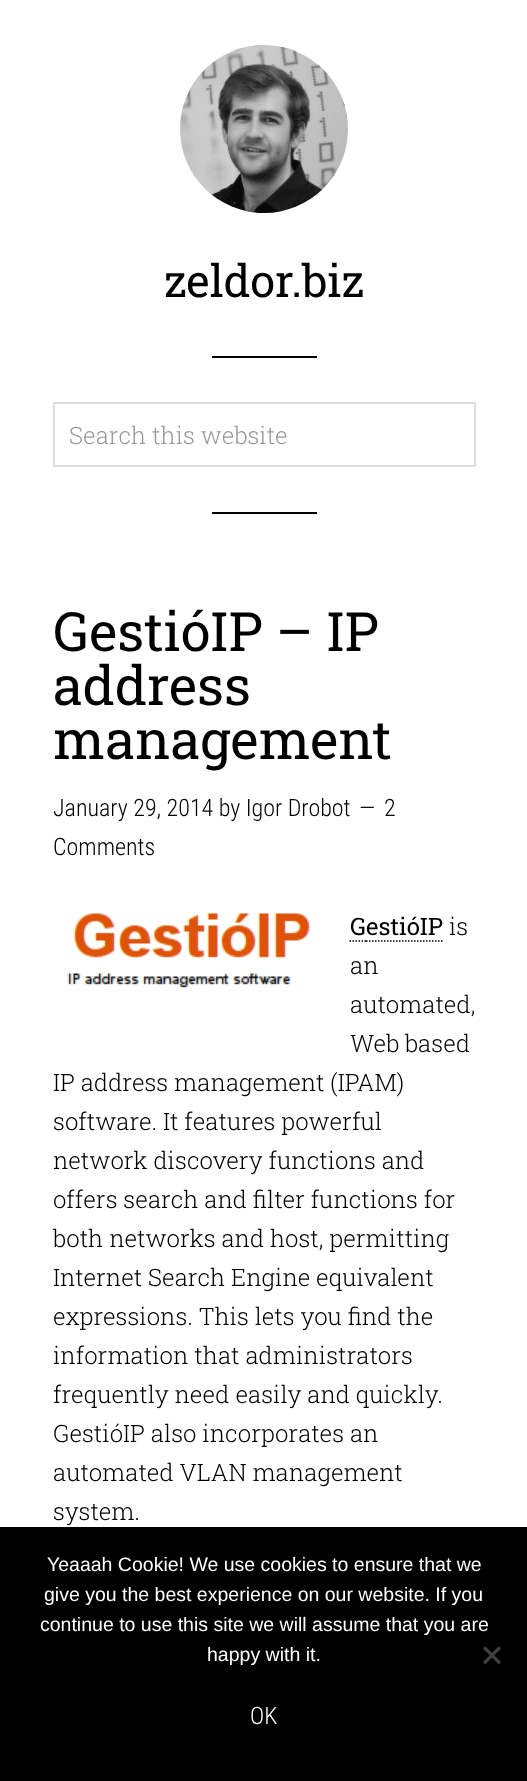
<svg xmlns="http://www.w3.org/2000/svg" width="527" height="1781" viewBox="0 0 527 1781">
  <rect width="100%" height="100%" fill="#ffffff"/>
  <image x="180" y="45" width="168" height="168" href="img1.png"/>
  <text x="164" y="297" font-family="Roboto Slab" font-size="45" fill="#000000">zeldor.biz</text>
  <rect x="212" y="356" width="105" height="2" fill="#000000"/>
  <rect x="54" y="403" width="421" height="63" fill="none" stroke="#dddddd" stroke-width="2"/>
  <text x="69" y="444" font-family="Roboto Slab" font-size="24" font-weight="300" fill="#999999">Search this website</text>
  <rect x="212" y="512" width="105" height="2" fill="#000000"/>
  <text x="53" y="651" font-family="Roboto Slab" font-size="54" fill="#000000">GestióIP – IP</text>
  <text x="53" y="705" font-family="Roboto Slab" font-size="54" fill="#000000">address</text>
  <text x="53" y="759" font-family="Roboto Slab" font-size="54" fill="#000000">management</text>
  <text x="53" y="816" font-family="Roboto Condensed" font-size="24" font-weight="300" fill="#000000">January 29, 2014 by Igor Drobot</text>
  <text x="359" y="816" font-family="Roboto Condensed" font-size="24" font-weight="300" fill="#000000">—</text>
  <text x="384" y="816" font-family="Roboto Condensed" font-size="24" font-weight="300" fill="#000000">2</text>
  <text x="53" y="855" font-family="Roboto Condensed" font-size="24" font-weight="300" fill="#000000">Comments</text>
  <image x="67" y="913" width="244" height="75" href="img2.png"/>
  <text x="350" y="935" font-family="Roboto Slab" font-size="24" fill="#000000">G</text>
  <path d="M349.5 941H366" fill="none" stroke="#000000" stroke-width="1.5" stroke-dasharray="1.5 1.5"/>
  <path d="M366 941H442.5" fill="none" stroke="#000000" stroke-width="1.5" stroke-dasharray="1.5 1.5"/>
  <text x="366" y="935" font-family="Roboto Slab" font-size="24" fill="#000000">estióIP</text>
  <text x="449" y="935" font-family="Roboto Slab" font-size="24" font-weight="300" fill="#000000">is</text>
  <text x="350" y="974" font-family="Roboto Slab" font-size="24" font-weight="300" fill="#000000">an</text>
  <text x="350" y="1013" font-family="Roboto Slab" font-size="24" font-weight="300" fill="#000000">automated,</text>
  <text x="350" y="1052" font-family="Roboto Slab" font-size="24" font-weight="300" fill="#000000">Web based</text>
  <text x="53" y="1091" font-family="Roboto Slab" font-size="24" font-weight="300" fill="#000000">IP address management (IPAM)</text>
  <text x="53" y="1130" font-family="Roboto Slab" font-size="24" font-weight="300" fill="#000000">software. It features powerful</text>
  <text x="53" y="1169" font-family="Roboto Slab" font-size="24" font-weight="300" fill="#000000">network discovery functions and</text>
  <text x="53" y="1208" font-family="Roboto Slab" font-size="24" font-weight="300" fill="#000000">offers search and filter functions for</text>
  <text x="53" y="1247" font-family="Roboto Slab" font-size="24" font-weight="300" fill="#000000">both networks and host, permitting</text>
  <text x="53" y="1286" font-family="Roboto Slab" font-size="24" font-weight="300" fill="#000000">Internet Search Engine equivalent</text>
  <text x="53" y="1325" font-family="Roboto Slab" font-size="24" font-weight="300" fill="#000000">expressions. This lets you find the</text>
  <text x="53" y="1364" font-family="Roboto Slab" font-size="24" font-weight="300" fill="#000000">information that administrators</text>
  <text x="53" y="1403" font-family="Roboto Slab" font-size="24" font-weight="300" fill="#000000">frequently need easily and quickly.</text>
  <text x="53" y="1442" font-family="Roboto Slab" font-size="24" font-weight="300" fill="#000000">GestióIP also incorporates an</text>
  <text x="53" y="1481" font-family="Roboto Slab" font-size="24" font-weight="300" fill="#000000">automated VLAN management</text>
  <text x="53" y="1520" font-family="Roboto Slab" font-size="24" font-weight="300" fill="#000000">system.</text>
  <rect x="0" y="1527" width="527" height="254" fill="#000000"/>
  <text x="47" y="1571" font-family="Liberation Sans" font-size="19.5" fill="#ffffff">Yeaaah Cookie! We use cookies to ensure that we</text>
  <text x="44" y="1601" font-family="Liberation Sans" font-size="19.5" fill="#ffffff">give you the best experience on our website. If you</text>
  <text x="40" y="1631" font-family="Liberation Sans" font-size="19.5" fill="#ffffff">continue to use this site we will assume that you are</text>
  <text x="207" y="1661" font-family="Liberation Sans" font-size="19.5" fill="#ffffff">happy with it.</text>
  <path d="M499 1646L501 1648.5L485 1664.5L483 1662Z" fill="#404040"/>
  <path d="M483 1648.5L485 1646L501 1662L499 1664.5Z" fill="#404040"/>
  <text x="250" y="1724" font-family="Roboto Condensed" font-size="24" font-weight="300" fill="#ffffff">OK</text>
</svg>
